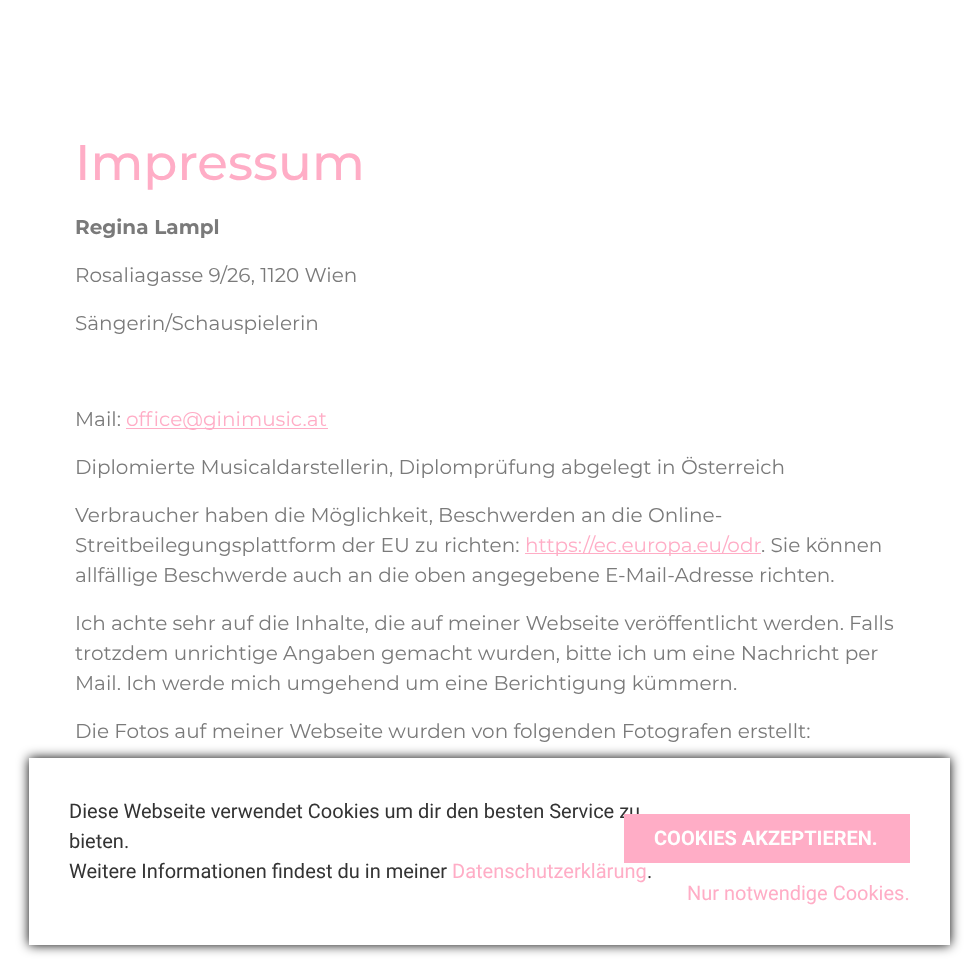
<svg xmlns="http://www.w3.org/2000/svg" width="978" height="965" viewBox="0 0 978 965">
  <defs>
    <filter id="blur1" x="-50%" y="-200%" width="200%" height="500%"><feGaussianBlur stdDeviation="6"/></filter>
  </defs>
  <rect width="100%" height="100%" fill="#ffffff"/>
  <text x="75" y="180" font-family="Montserrat" font-size="50" font-weight="500" fill="#ffadc6">Impressum</text>
  <text x="75" y="234" font-family="Montserrat" font-size="20" font-weight="bold" fill="#7a7a7a">Regina Lampl</text>
  <text x="75" y="282" font-family="Montserrat" font-size="20" fill="#7a7a7a">Rosaliagasse 9/26, 1120 Wien</text>
  <text x="75" y="330" font-family="Montserrat" font-size="20" fill="#7a7a7a">Sängerin/Schauspielerin</text>
  <text x="75" y="426" font-family="Montserrat" font-size="20" fill="#7a7a7a">Mail:</text>
  <rect x="126" y="428" width="202" height="1" fill="#ffadc6"/>
  <text x="126" y="426" font-family="Montserrat" font-size="20" fill="#ffadc6">office@ginimusic.at</text>
  <text x="75" y="474" font-family="Montserrat" font-size="20" fill="#7a7a7a">Diplomierte Musicaldarstellerin, Diplomprüfung abgelegt in Österreich</text>
  <text x="75" y="522" font-family="Montserrat" font-size="20" fill="#7a7a7a">Verbraucher haben die Möglichkeit, Beschwerden an die Online-</text>
  <text x="75" y="552" font-family="Montserrat" font-size="20" fill="#7a7a7a">Streitbeilegungsplattform der EU zu richten:</text>
  <rect x="525" y="553" width="236" height="1" fill="#ffadc6"/>
  <text x="525" y="552" font-family="Montserrat" font-size="20" fill="#ffadc6">https://ec.europa.eu/odr</text>
  <text x="761" y="552" font-family="Montserrat" font-size="20" fill="#7a7a7a">. Sie können</text>
  <text x="75" y="582" font-family="Montserrat" font-size="20" fill="#7a7a7a">allfällige Beschwerde auch an die oben angegebene E-Mail-Adresse richten.</text>
  <text x="75" y="630" font-family="Montserrat" font-size="20" fill="#7a7a7a">Ich achte sehr auf die Inhalte, die auf meiner Webseite veröffentlicht werden. Falls</text>
  <text x="75" y="660" font-family="Montserrat" font-size="20" fill="#7a7a7a">trotzdem unrichtige Angaben gemacht wurden, bitte ich um eine Nachricht per</text>
  <text x="75" y="690" font-family="Montserrat" font-size="20" fill="#7a7a7a">Mail. Ich werde mich umgehend um eine Berichtigung kümmern.</text>
  <text x="75" y="738" font-family="Montserrat" font-size="20" fill="#7a7a7a">Die Fotos auf meiner Webseite wurden von folgenden Fotografen erstellt:</text>
  <rect x="29" y="758" width="921" height="187" fill="#000000" filter="url(#blur1)"/>
  <rect x="29" y="758" width="921" height="187" fill="#ffffff"/>
  <text x="69" y="818" font-family="Roboto" font-size="20" fill="#333333">Diese Webseite verwendet Cookies um dir den besten Service zu</text>
  <text x="69" y="848" font-family="Roboto" font-size="20" fill="#333333">bieten.</text>
  <text x="69" y="878" font-family="Roboto" font-size="20" fill="#333333">Weitere Informationen findest du in meiner</text>
  <text x="452" y="878" font-family="Roboto" font-size="20" fill="#ffadc6">Datenschutzerklärung</text>
  <text x="647" y="878" font-family="Roboto" font-size="20" fill="#333333">.</text>
  <rect x="624" y="814" width="286" height="49" fill="#ffadc6"/>
  <text x="654" y="845" font-family="Roboto" font-size="20" font-weight="bold" fill="#ffffff">COOKIES AKZEPTIEREN.</text>
  <text x="687" y="900" font-family="Roboto" font-size="20" fill="#ffadc6">Nur notwendige Cookies.</text>
</svg>
